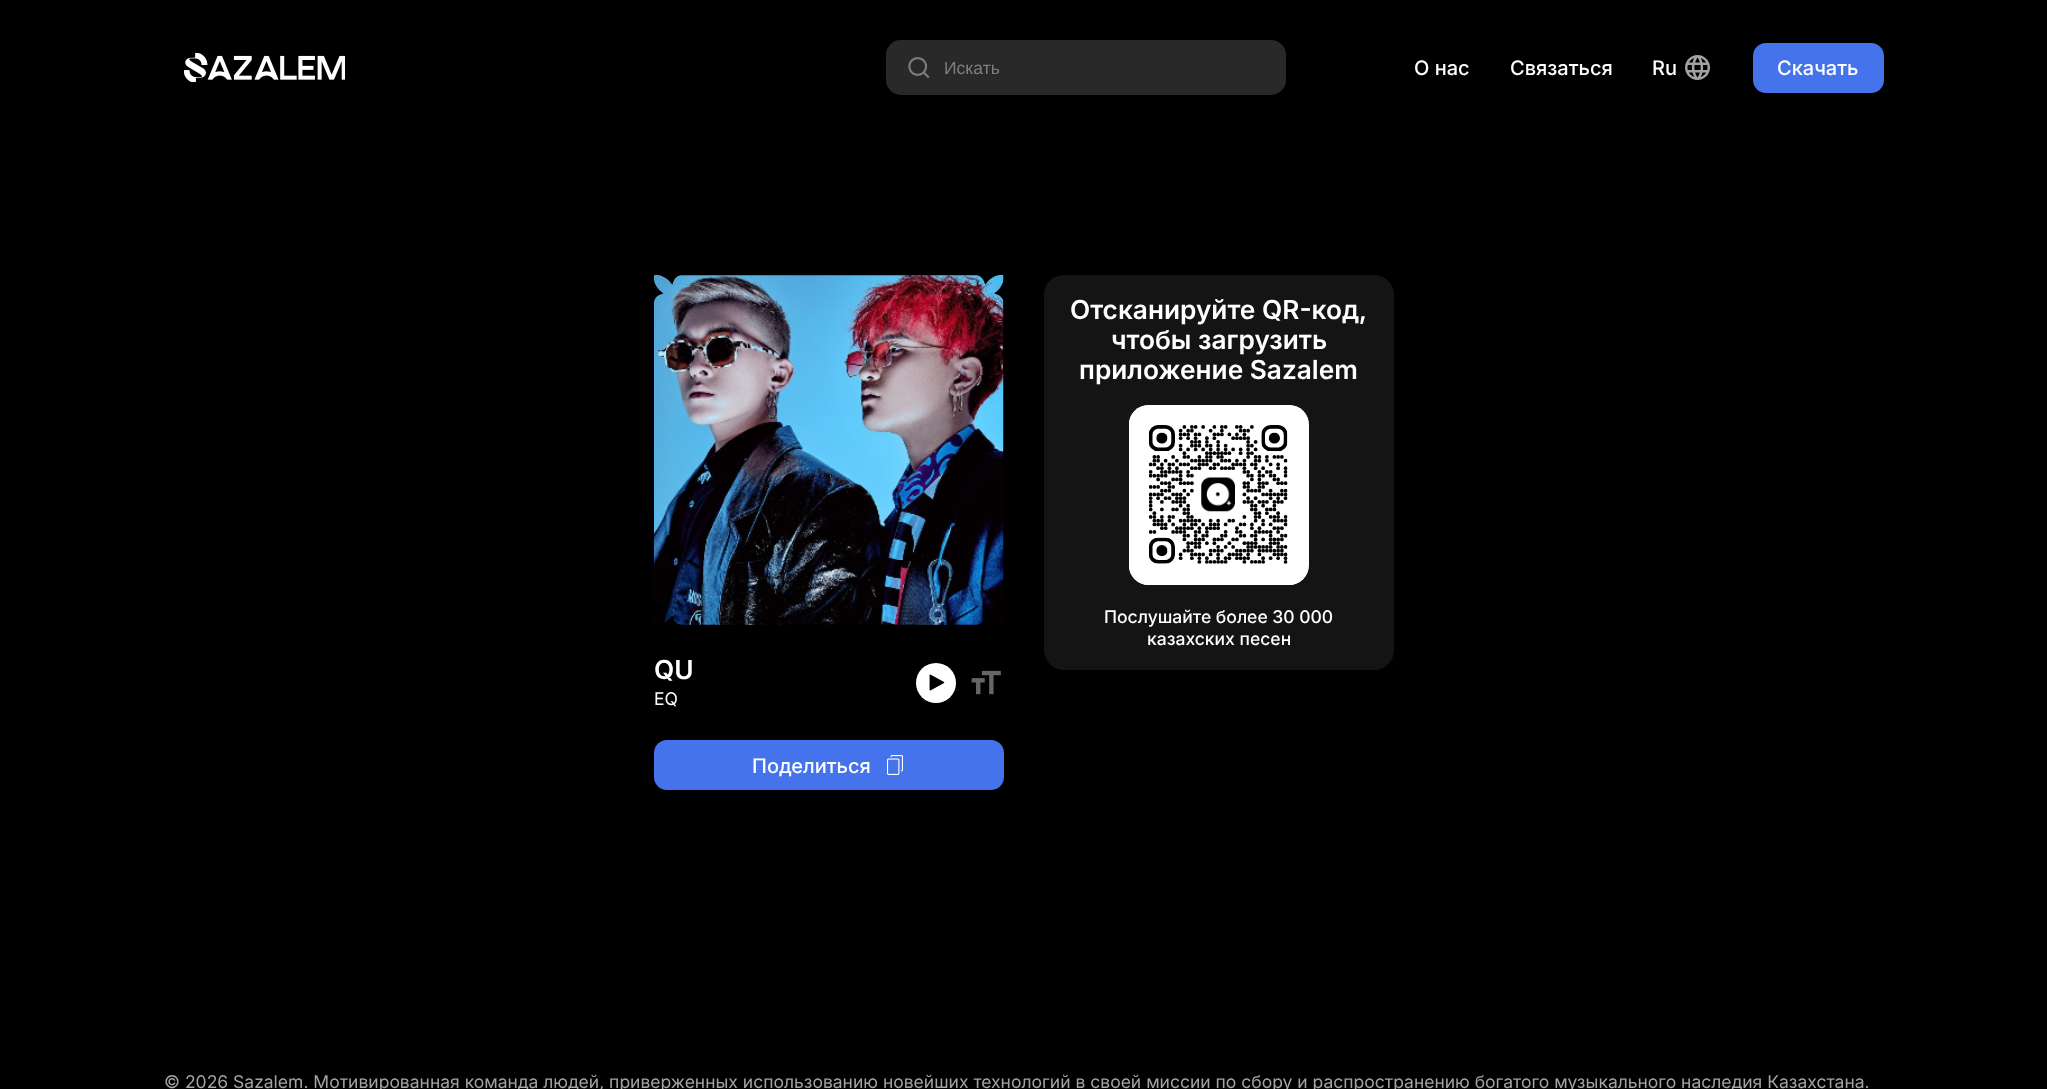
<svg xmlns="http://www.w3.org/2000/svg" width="2047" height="1089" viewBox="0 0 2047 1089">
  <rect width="100%" height="100%" fill="#000000"/>
  <image x="184" y="53" width="161" height="29" href="img1.png"/>
  <rect x="886" y="40" width="400" height="55" rx="15" fill="#292929"/>
  <image x="908" y="57" width="22" height="21" href="img2.png"/>
  <text x="944" y="74" font-family="Liberation Sans" font-size="17.5" fill="#7f7f7f">Искать</text>
  <text x="1414" y="75" font-family="Inter" font-size="20" font-weight="500" fill="#ffffff">О нас</text>
  <text x="1510" y="75" font-family="Inter" font-size="20" font-weight="500" fill="#ffffff">Связаться</text>
  <text x="1652" y="75" font-family="Inter" font-size="20" font-weight="500" fill="#ffffff">Ru</text>
  <image x="1685" y="55" width="25" height="25" href="img3.png"/>
  <rect x="1753" y="43" width="131" height="50" rx="13" fill="#4473eb"/>
  <text x="1777" y="75" font-family="Inter" font-size="20" font-weight="500" fill="#ffffff">Скачать</text>
  <rect x="1044" y="275" width="350" height="395" rx="20" fill="#141414"/>
  <text x="1070" y="319" font-family="Inter" font-size="26.25" font-weight="600" fill="#ffffff">Отсканируйте QR-код,</text>
  <text x="1111" y="349" font-family="Inter" font-size="26.25" font-weight="600" fill="#ffffff">чтобы загрузить</text>
  <text x="1079" y="379" font-family="Inter" font-size="26.25" font-weight="600" fill="#ffffff">приложение Sazalem</text>
  <rect x="1129" y="405" width="180" height="180" rx="20" fill="#ffffff"/>
  <image x="1129" y="405" width="180" height="180" href="img4.png"/>
  <text x="1104" y="623" font-family="Inter" font-size="17.5" font-weight="500" fill="#ffffff">Послушайте более 30 000</text>
  <text x="1147" y="645" font-family="Inter" font-size="17.5" font-weight="500" fill="#ffffff">казахских песен</text>
  <image x="654" y="275" width="350" height="350" href="img5.png"/>
  <text x="654" y="679" font-family="Inter" font-size="26.25" font-weight="600" fill="#ffffff">QU</text>
  <text x="654" y="705" font-family="Inter" font-size="17.5" fill="#ffffff">EQ</text>
  <circle cx="936" cy="683" r="20" fill="#ffffff"/>
  <image x="929" y="674" width="16" height="17" href="img6.png"/>
  <image x="971" y="670" width="30" height="25" href="img7.png"/>
  <rect x="654" y="740" width="350" height="50" rx="13" fill="#4473eb"/>
  <text x="752" y="773" font-family="Inter" font-size="20" font-weight="500" fill="#ffffff">Поделиться</text>
  <image x="887" y="755" width="16" height="20" href="img8.png"/>
  <text x="164" y="1088" font-family="Inter" font-size="17.5" fill="#a3a3a3">© 2026 Sazalem. Мотивированная команда людей, приверженных использованию новейших технологий в своей миссии по сбору и распространению богатого музыкального наследия Казахстана.</text>
</svg>
